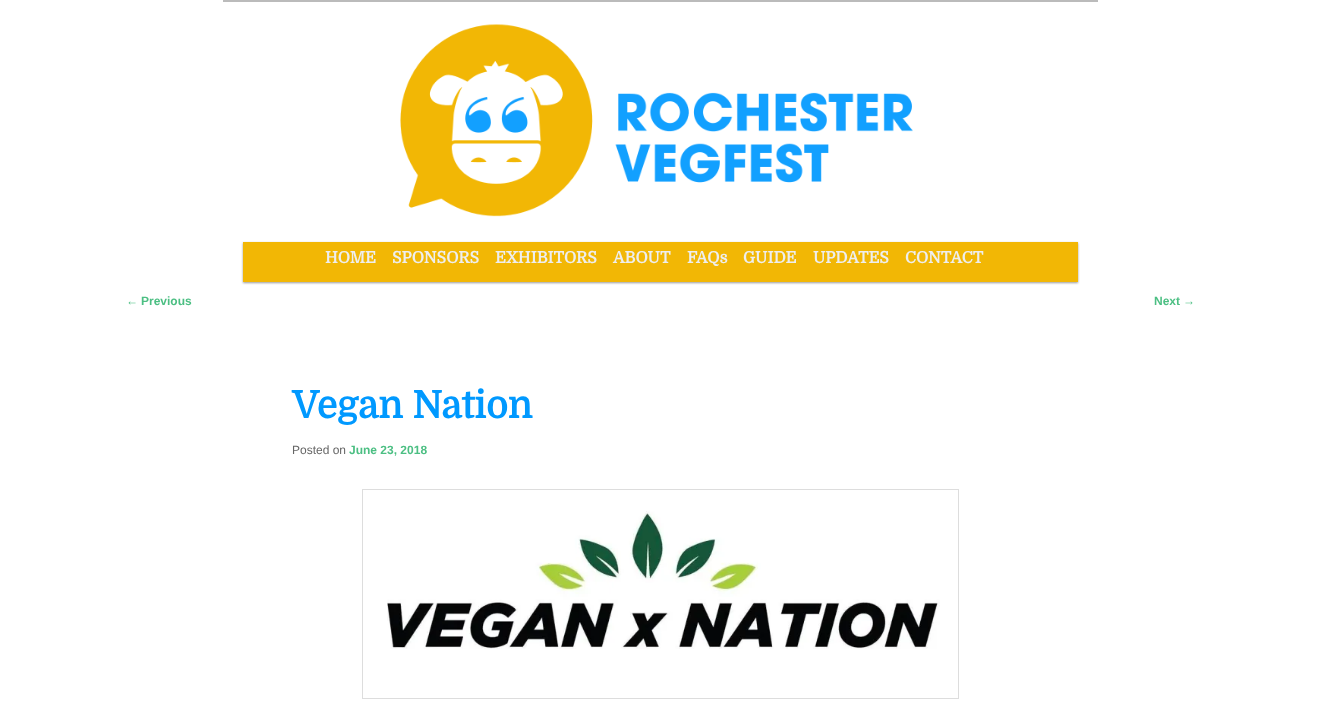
<svg xmlns="http://www.w3.org/2000/svg" width="1321" height="718" viewBox="0 0 1321 718">
  <defs>
    <filter id="blur1" x="-50%" y="-200%" width="200%" height="500%"><feGaussianBlur stdDeviation="1"/></filter>
  </defs>
  <rect width="100%" height="100%" fill="#ffffff"/>
  <rect x="223" y="0" width="875" height="2" fill="#bbbbbb"/>
  <image x="400" y="24" width="513" height="193" href="img1.png"/>
  <rect x="243" y="243" width="835" height="40" fill="#000000" fill-opacity="0.4" filter="url(#blur1)"/>
  <rect x="243" y="242" width="835" height="40" fill="#f2b705"/>
  <text x="325" y="263" font-family="Domine" font-size="16" font-weight="bold" fill="#eeeeee">HOME</text>
  <text x="392" y="263" font-family="Domine" font-size="16" font-weight="bold" fill="#eeeeee">SPONSORS</text>
  <text x="495" y="263" font-family="Domine" font-size="16" font-weight="bold" fill="#eeeeee">EXHIBITORS</text>
  <text x="613" y="263" font-family="Domine" font-size="16" font-weight="bold" fill="#eeeeee">ABOUT</text>
  <text x="687" y="263" font-family="Domine" font-size="16" font-weight="bold" fill="#eeeeee">FAQs</text>
  <text x="743" y="263" font-family="Domine" font-size="16" font-weight="bold" fill="#eeeeee">GUIDE</text>
  <text x="813" y="263" font-family="Domine" font-size="16" font-weight="bold" fill="#eeeeee">UPDATES</text>
  <text x="905" y="263" font-family="Domine" font-size="16" font-weight="bold" fill="#eeeeee">CONTACT</text>
  <text x="126" y="305" font-family="Liberation Sans" font-size="12" fill="#4cbf83">←</text>
  <text x="141" y="305" font-family="Liberation Sans" font-size="12" font-weight="bold" fill="#4cbf83">Previous</text>
  <text x="1154" y="305" font-family="Liberation Sans" font-size="12" font-weight="bold" fill="#4cbf83">Next</text>
  <text x="1183" y="305" font-family="Liberation Sans" font-size="12" fill="#4cbf83">→</text>
  <text x="292" y="418" font-family="Domine" font-size="37.5" font-weight="bold" fill="#0099ff">Vegan Nation</text>
  <text x="292" y="454" font-family="Liberation Sans" font-size="12" fill="#666666">Posted on</text>
  <text x="349" y="454" font-family="Liberation Sans" font-size="12" font-weight="bold" fill="#4cbf83">June 23, 2018</text>
  <rect x="362.5" y="489.5" width="596" height="209" fill="none" stroke="#dddddd"/>
  <image x="387" y="511" width="553" height="138" href="img2.png"/>
</svg>
